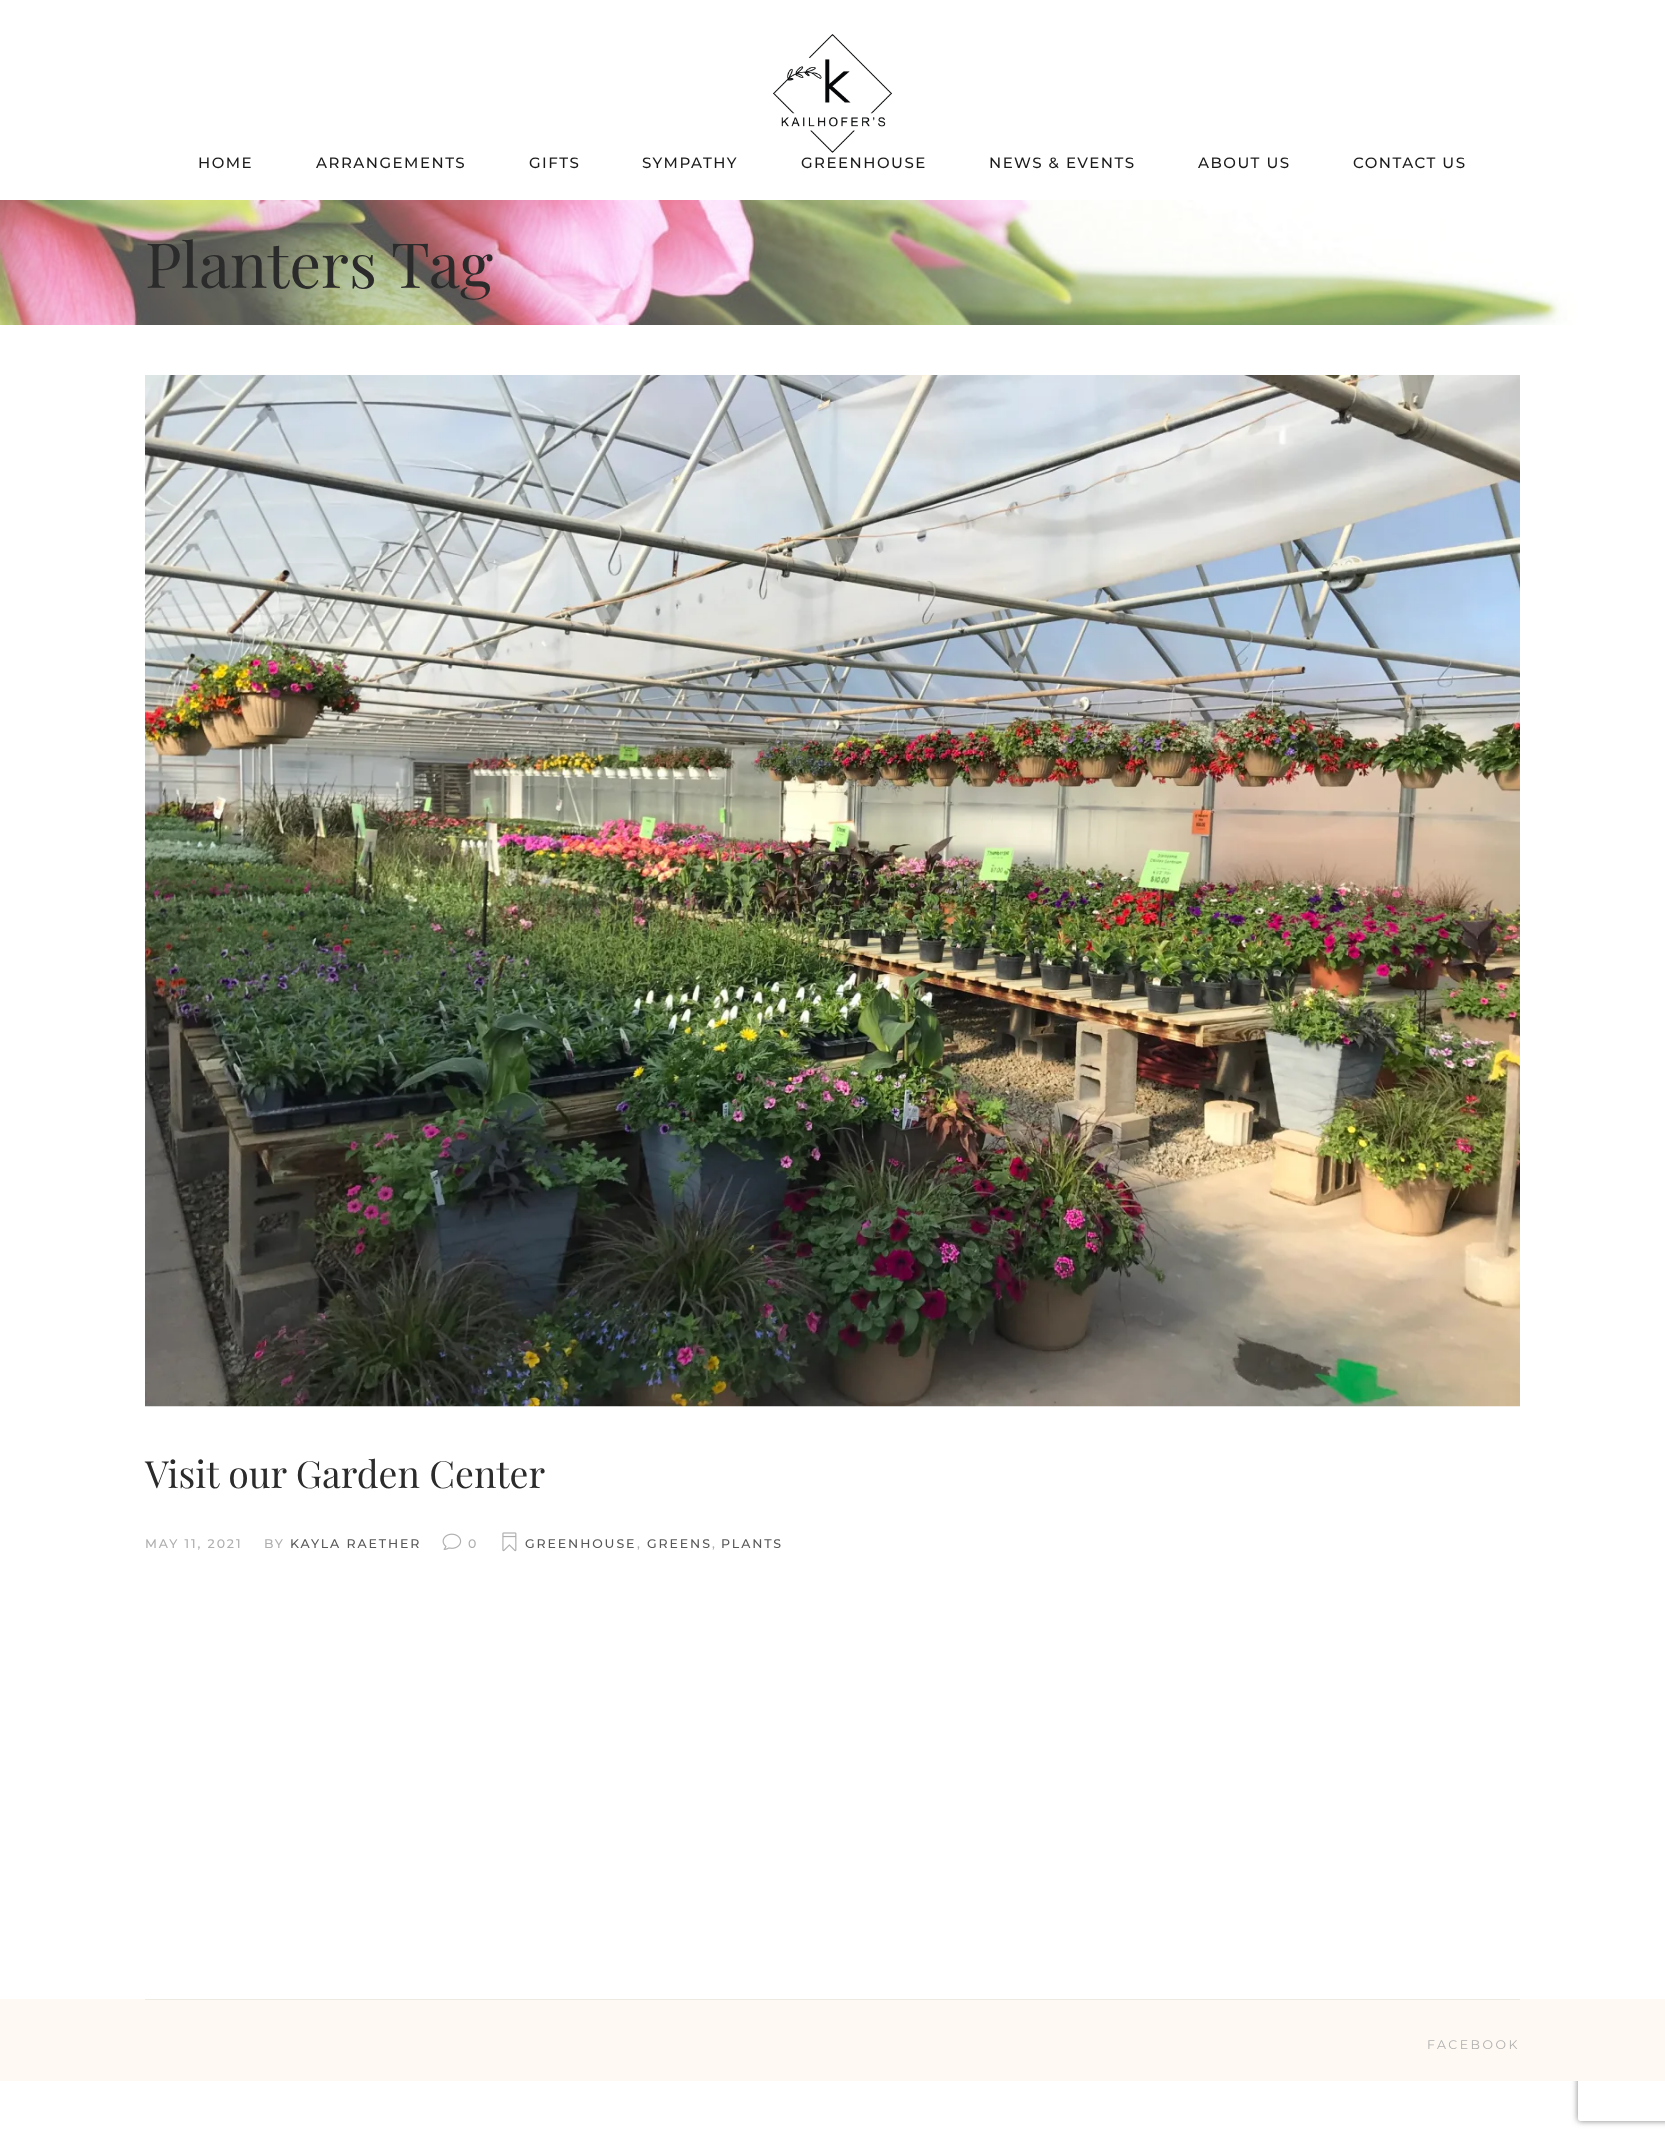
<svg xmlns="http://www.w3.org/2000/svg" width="1665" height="2138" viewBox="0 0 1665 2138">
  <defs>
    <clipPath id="clip1"><path d="M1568 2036H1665V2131H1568ZM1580.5 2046H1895.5C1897 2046 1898 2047 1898 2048.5V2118.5C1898 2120 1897 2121 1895.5 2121H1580.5C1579 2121 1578 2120 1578 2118.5V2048.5C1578 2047 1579 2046 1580.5 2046Z" clip-rule="evenodd"/></clipPath>
    <filter id="blur1" x="-50%" y="-200%" width="200%" height="500%"><feGaussianBlur stdDeviation="3"/></filter>
  </defs>
  <rect width="100%" height="100%" fill="#ffffff"/>
  <image x="773" y="34" width="119" height="119" href="img1.png"/>
  <text x="198" y="168" font-family="Montserrat" font-size="15" font-weight="500" letter-spacing="1.5" fill="#1b1b1b">HOME</text>
  <text x="316" y="168" font-family="Montserrat" font-size="15" font-weight="500" letter-spacing="1.5" fill="#1b1b1b">ARRANGEMENTS</text>
  <text x="529" y="168" font-family="Montserrat" font-size="15" font-weight="500" letter-spacing="1.5" fill="#1b1b1b">GIFTS</text>
  <text x="642" y="168" font-family="Montserrat" font-size="15" font-weight="500" letter-spacing="1.5" fill="#1b1b1b">SYMPATHY</text>
  <text x="801" y="168" font-family="Montserrat" font-size="15" font-weight="500" letter-spacing="1.5" fill="#1b1b1b">GREENHOUSE</text>
  <text x="989" y="168" font-family="Montserrat" font-size="15" font-weight="500" letter-spacing="1.5" fill="#1b1b1b">NEWS &amp; EVENTS</text>
  <text x="1198" y="168" font-family="Montserrat" font-size="15" font-weight="500" letter-spacing="1.5" fill="#1b1b1b">ABOUT US</text>
  <text x="1353" y="168" font-family="Montserrat" font-size="15" font-weight="500" letter-spacing="1.5" fill="#1b1b1b">CONTACT US</text>
  <image x="0" y="200" width="1665" height="125" href="img2.png"/>
  <text x="145" y="288" font-family="Playfair Display" font-size="62.5" fill="#2b2b2b">Planters Tag</text>
  <image x="145" y="375" width="1375" height="1032" href="img3.png"/>
  <text x="145" y="1488" font-family="Playfair Display" font-size="37.5" fill="#2b2b2b">Visit our Garden Center</text>
  <text x="145" y="1548" font-family="Montserrat" font-size="12.5" font-weight="500" letter-spacing="1.9" fill="#afafaf">MAY 11, 2021</text>
  <text x="264" y="1548" font-family="Montserrat" font-size="12.5" font-weight="500" letter-spacing="1.9" fill="#afafaf">BY</text>
  <text x="290" y="1548" font-family="Montserrat" font-size="12.5" font-weight="500" letter-spacing="1.9" fill="#595858">KAYLA RAETHER</text>
  <image x="442" y="1533" width="20" height="17" href="img4.png"/>
  <text x="468" y="1548" font-family="Montserrat" font-size="12.5" font-weight="500" letter-spacing="1.9" fill="#afafaf">0</text>
  <image x="502" y="1532" width="15" height="20" href="img5.png"/>
  <text x="525" y="1548" font-family="Montserrat" font-size="12.5" font-weight="500" letter-spacing="1.9" fill="#595858">GREENHOUSE</text>
  <text x="637" y="1548" font-family="Montserrat" font-size="12.5" font-weight="500" letter-spacing="1.9" fill="#afafaf">,</text>
  <text x="647" y="1548" font-family="Montserrat" font-size="12.5" font-weight="500" letter-spacing="1.9" fill="#595858">GREENS</text>
  <text x="712" y="1548" font-family="Montserrat" font-size="12.5" font-weight="500" letter-spacing="1.9" fill="#afafaf">,</text>
  <text x="721" y="1548" font-family="Montserrat" font-size="12.5" font-weight="500" letter-spacing="1.9" fill="#595858">PLANTS</text>
  <g clip-path="url(#clip1)">
    <rect x="1578" y="2046" width="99" height="75" rx="2.5" fill="#808080" filter="url(#blur1)"/>
  </g>
  <rect x="0" y="1999" width="1665" height="82" fill="#fefaf3"/>
  <rect x="145" y="1999" width="1375" height="1" fill="#eceae1"/>
  <text x="1427" y="2049" font-family="Montserrat" font-size="12.5" letter-spacing="2.5" fill="#afafaf">FACEBOOK</text>
</svg>
